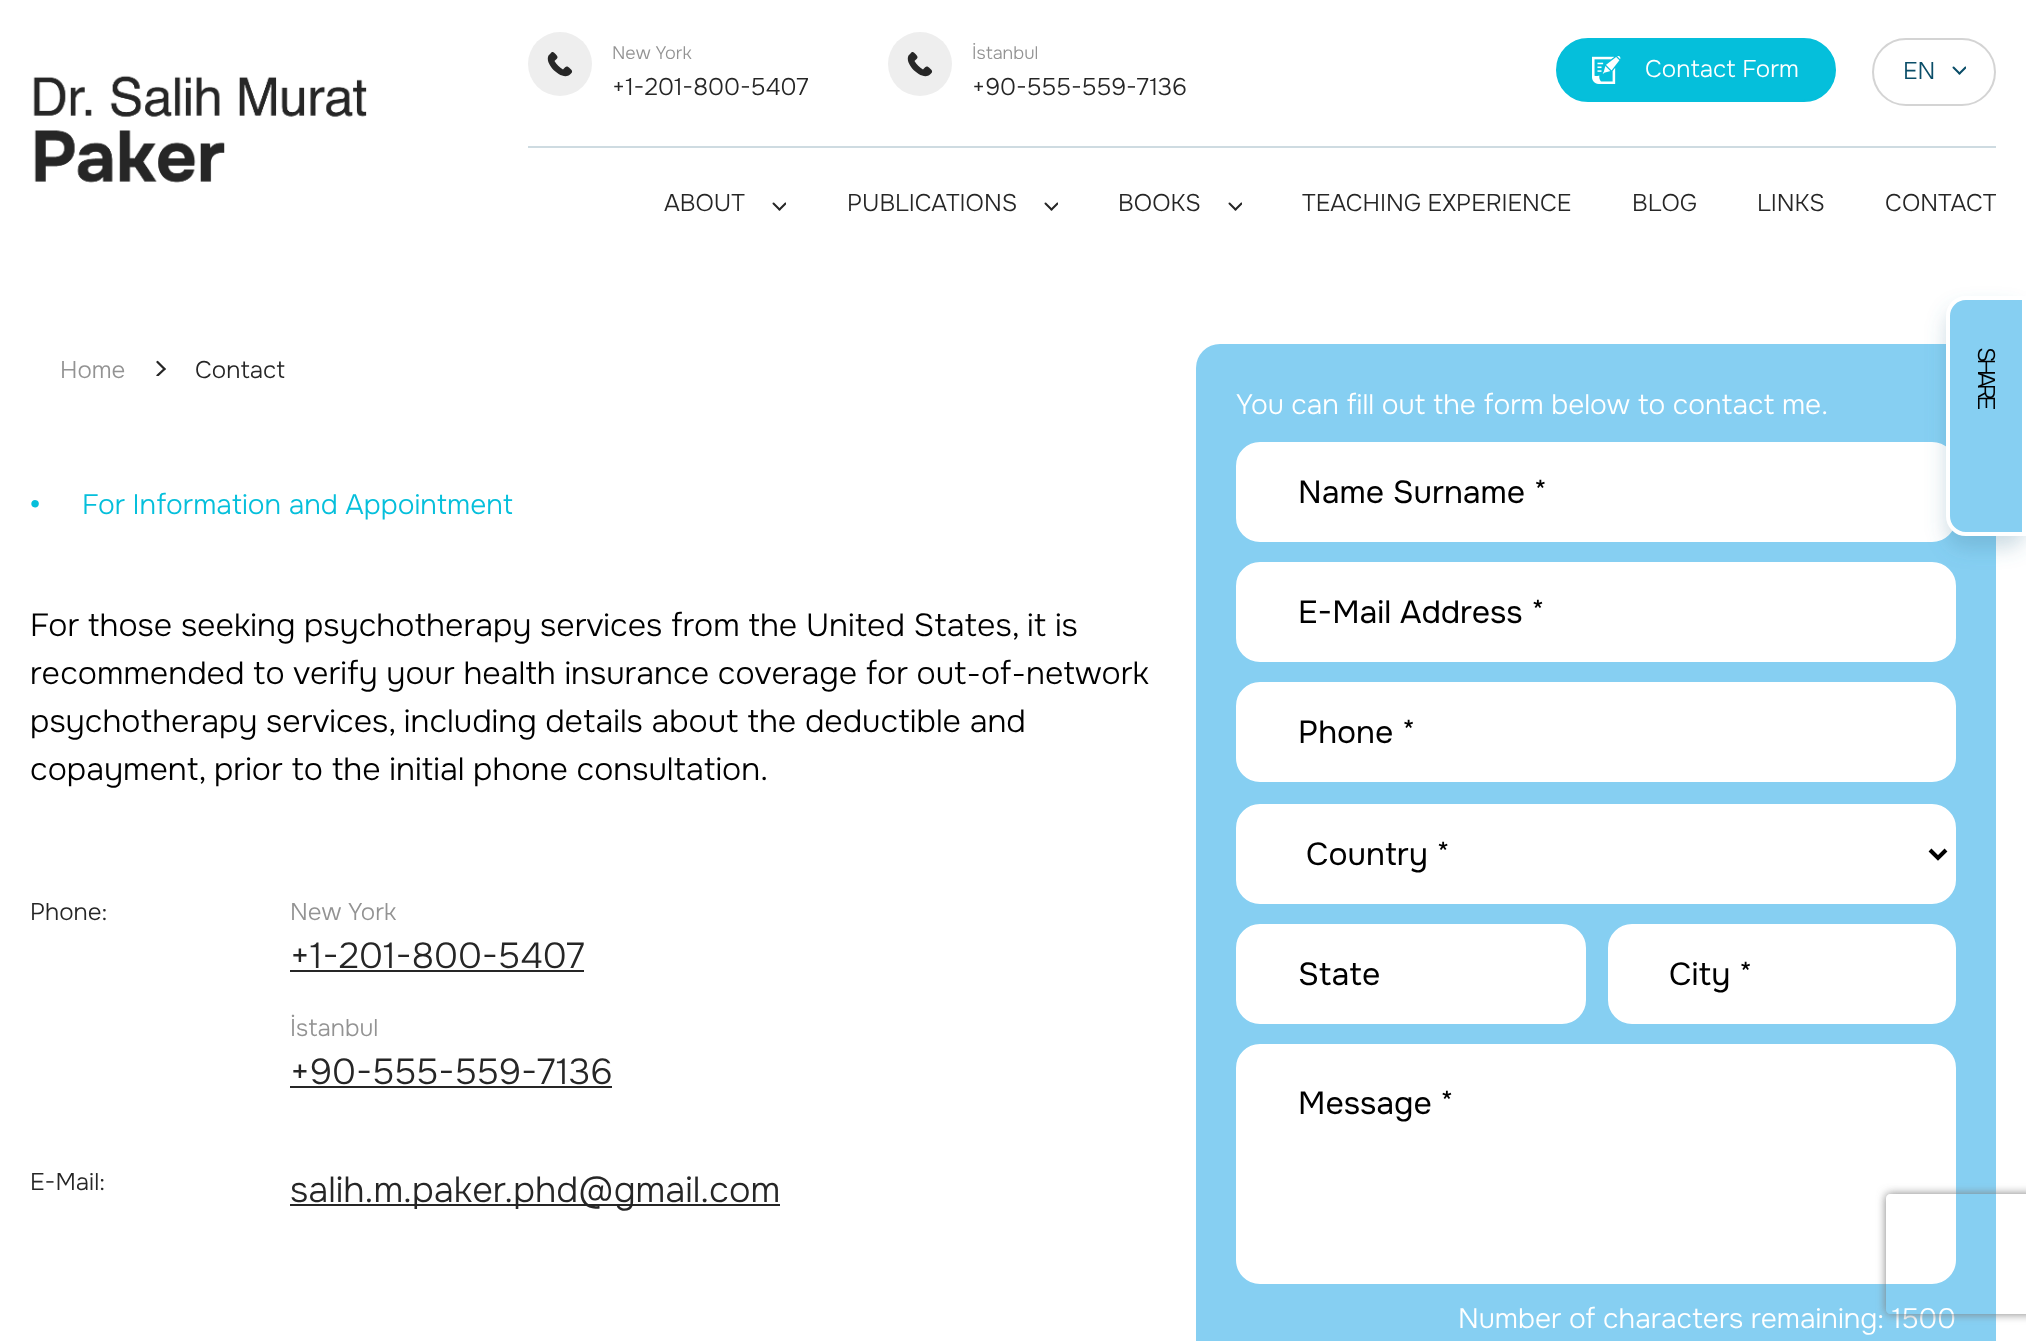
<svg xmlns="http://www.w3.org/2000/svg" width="2026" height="1341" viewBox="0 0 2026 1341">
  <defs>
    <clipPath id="clip1"><rect x="1952" y="66" width="14" height="10"/></clipPath>
    <clipPath id="clip2"><rect x="772" y="202" width="14" height="10"/></clipPath>
    <clipPath id="clip3"><rect x="1044" y="202" width="14" height="10"/></clipPath>
    <clipPath id="clip4"><rect x="1228" y="202" width="14" height="10"/></clipPath>
    <clipPath id="clip5"><rect x="156" y="360" width="10" height="16"/></clipPath>
    <filter id="blur1" x="-50%" y="-200%" width="200%" height="500%"><feGaussianBlur stdDeviation="10"/></filter>
    <clipPath id="clip6"><path d="M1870 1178H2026V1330H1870ZM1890 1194H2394C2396 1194 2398 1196 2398 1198V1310C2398 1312 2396 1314 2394 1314H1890C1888 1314 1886 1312 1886 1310V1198C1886 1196 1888 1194 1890 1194Z" clip-rule="evenodd"/></clipPath>
    <filter id="blur2" x="-50%" y="-200%" width="200%" height="500%"><feGaussianBlur stdDeviation="5"/></filter>
  </defs>
  <rect width="100%" height="100%" fill="#ffffff"/>
  <image x="33" y="75" width="334" height="108" href="img1.png"/>
  <rect x="528" y="146" width="1468" height="2" fill="#cedbe1"/>
  <circle cx="560" cy="64" r="32" fill="#eeeeee"/>
  <path d="M570 74.5C562.5 81.5 544 64.5 548.5 55.5L550.5 53.5C552.5 51 553.5 52 555.5 54C559 57.5 557.5 58 554.5 61C556.5 64.5 559.5 67.5 563 69.5C566 66.5 566.5 65 570 68.5C571.5 69.5 573 71.5 571.5 73Z" fill="#262626"/>
  <text x="612" y="59" font-family="Onest" font-size="18" font-weight="300" fill="#939393">New York</text>
  <text x="612" y="95" font-family="Onest" font-size="24" font-weight="300" fill="#262626">+1-201-800-5407</text>
  <circle cx="920" cy="64" r="32" fill="#eeeeee"/>
  <path d="M930 74.5C922.5 81.5 904 64.5 908.5 55.5L910.5 53.5C912.5 51 913.5 52 915.5 54C919 57.5 917.5 58 914.5 61C916.5 64.5 919.5 67.5 923 69.5C926 66.5 926.5 65 930 68.5C931.5 69.5 933 71.5 931.5 73Z" fill="#262626"/>
  <text x="972" y="59" font-family="Onest" font-size="18" font-weight="300" fill="#939393">İstanbul</text>
  <text x="972" y="95" font-family="Onest" font-size="24" font-weight="300" fill="#262626">+90-555-559-7136</text>
  <rect x="1557" y="39" width="278" height="62" rx="31" fill="#05bfdb" stroke="#05bfdb" stroke-width="2"/>
  <image x="1592" y="56" width="29" height="28" href="img2.png"/>
  <text x="1645" y="77" font-family="Onest" font-size="24" font-weight="300" fill="#ffffff">Contact Form</text>
  <rect x="1873" y="39" width="122" height="66" rx="33" fill="none" stroke="#d4d4d4" stroke-width="2"/>
  <text x="1903" y="79" font-family="Onest" font-size="24" font-weight="300" fill="#0a4d68">EN</text>
  <g clip-path="url(#clip1)">
    <path d="M1959.5 73.5L1965.5 67.5" fill="none" stroke="#0a4d68" stroke-width="2" stroke-linecap="round"/>
  </g>
  <path d="M1959.5 73.5L1953.5 67.5" fill="none" stroke="#0a4d68" stroke-width="2" stroke-linecap="round"/>
  <text x="664" y="211" font-family="Onest" font-size="24" font-weight="300" fill="#262626">ABOUT</text>
  <g clip-path="url(#clip2)">
    <path d="M779.5 209.5L785.5 203.5" fill="none" stroke="#262626" stroke-width="2" stroke-linecap="round"/>
  </g>
  <path d="M779.5 209.5L773.5 203.5" fill="none" stroke="#262626" stroke-width="2" stroke-linecap="round"/>
  <text x="847" y="211" font-family="Onest" font-size="24" font-weight="300" fill="#262626">PUBLICATIONS</text>
  <g clip-path="url(#clip3)">
    <path d="M1051.5 209.5L1057.5 203.5" fill="none" stroke="#262626" stroke-width="2" stroke-linecap="round"/>
  </g>
  <path d="M1051.5 209.5L1045.5 203.5" fill="none" stroke="#262626" stroke-width="2" stroke-linecap="round"/>
  <text x="1118" y="211" font-family="Onest" font-size="24" font-weight="300" fill="#262626">BOOKS</text>
  <g clip-path="url(#clip4)">
    <path d="M1235.5 209.5L1241.5 203.5" fill="none" stroke="#262626" stroke-width="2" stroke-linecap="round"/>
  </g>
  <path d="M1235.5 209.5L1229.5 203.5" fill="none" stroke="#262626" stroke-width="2" stroke-linecap="round"/>
  <text x="1302" y="211" font-family="Onest" font-size="24" font-weight="300" fill="#262626">TEACHING EXPERIENCE</text>
  <text x="1632" y="211" font-family="Onest" font-size="24" font-weight="300" fill="#262626">BLOG</text>
  <text x="1757" y="211" font-family="Onest" font-size="24" font-weight="300" fill="#262626">LINKS</text>
  <text x="1885" y="211" font-family="Onest" font-size="24" font-weight="300" fill="#262626">CONTACT</text>
  <text x="60" y="378" font-family="Onest" font-size="24" font-weight="300" fill="#939393">Home</text>
  <path d="M164.5 369L157.5 362" fill="none" stroke="#262626" stroke-width="2.3" stroke-linecap="round"/>
  <g clip-path="url(#clip5)">
    <path d="M164.5 369L157.5 375.5" fill="none" stroke="#262626" stroke-width="2.3" stroke-linecap="round"/>
  </g>
  <text x="195" y="378" font-family="Onest" font-size="24" font-weight="300" fill="#262626">Contact</text>
  <text x="30" y="514" font-family="Onest" font-size="28" font-weight="bold" fill="#05bfdb">•</text>
  <text x="82" y="514" font-family="Onest" font-size="28" font-weight="300" fill="#05bfdb">For Information and Appointment</text>
  <text x="30" y="636" font-family="Onest" font-size="32" font-weight="300" fill="#000000">For those seeking psychotherapy services from the United States, it is</text>
  <text x="30" y="684" font-family="Onest" font-size="32" font-weight="300" fill="#000000">recommended to verify your health insurance coverage for out-of-network</text>
  <text x="30" y="732" font-family="Onest" font-size="32" font-weight="300" fill="#000000">psychotherapy services, including details about the deductible and</text>
  <text x="30" y="780" font-family="Onest" font-size="32" font-weight="300" fill="#000000">copayment, prior to the initial phone consultation.</text>
  <text x="30" y="920" font-family="Onest" font-size="24" font-weight="300" fill="#262626">Phone:</text>
  <text x="290" y="920" font-family="Onest" font-size="24" font-weight="300" fill="#939393">New York</text>
  <text x="290" y="968" font-family="Onest" font-size="36" font-weight="300" fill="#262626">+1-201-800-5407</text>
  <rect x="290" y="970" width="294" height="2" fill="#262626"/>
  <text x="290" y="1036" font-family="Onest" font-size="24" font-weight="300" fill="#939393">İstanbul</text>
  <text x="290" y="1084" font-family="Onest" font-size="36" font-weight="300" fill="#262626">+90-555-559-7136</text>
  <rect x="290" y="1086" width="322" height="2" fill="#262626"/>
  <text x="30" y="1190" font-family="Onest" font-size="24" font-weight="300" fill="#262626">E-Mail:</text>
  <rect x="290" y="1204" width="490" height="2" fill="#262626"/>
  <text x="290" y="1202" font-family="Onest" font-size="36" font-weight="300" fill="#262626">salih.m.paker.phd@gmail.com</text>
  <rect x="1196" y="344" width="800" height="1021" rx="24" fill="#86cff2"/>
  <text x="1236" y="414" font-family="Onest" font-size="28" font-weight="300" fill="#ffffff">You can fill out the form below to contact me.</text>
  <rect x="1237" y="443" width="718" height="98" rx="23" fill="#ffffff" stroke="#ffffff" stroke-width="2"/>
  <text x="1298" y="503" font-family="Onest" font-size="32" fill="#000000">Name Surname *</text>
  <rect x="1237" y="563" width="718" height="98" rx="23" fill="#ffffff" stroke="#ffffff" stroke-width="2"/>
  <text x="1298" y="623" font-family="Onest" font-size="32" fill="#000000">E-Mail Address *</text>
  <rect x="1237" y="683" width="718" height="98" rx="23" fill="#ffffff" stroke="#ffffff" stroke-width="2"/>
  <text x="1298" y="743" font-family="Onest" font-size="32" fill="#000000">Phone *</text>
  <rect x="1237" y="805" width="718" height="98" rx="23" fill="#ffffff" stroke="#ffffff" stroke-width="2"/>
  <path d="M1930 850L1938 858L1946 850" fill="none" stroke="#000000" stroke-width="4"/>
  <text x="1306" y="865" font-family="Onest" font-size="32" fill="#000000">Country *</text>
  <rect x="1237" y="925" width="348" height="98" rx="23" fill="#ffffff" stroke="#ffffff" stroke-width="2"/>
  <text x="1298" y="985" font-family="Onest" font-size="32" fill="#000000">State</text>
  <rect x="1609" y="925" width="346" height="98" rx="23" fill="#ffffff" stroke="#ffffff" stroke-width="2"/>
  <text x="1669" y="985" font-family="Onest" font-size="32" fill="#000000">City *</text>
  <rect x="1237" y="1045" width="718" height="238" rx="23" fill="#ffffff" stroke="#ffffff" stroke-width="2"/>
  <text x="1298" y="1114" font-family="Onest" font-size="32" fill="#000000">Message *</text>
  <text x="1458" y="1328" font-family="Onest" font-size="28" font-weight="300" fill="#ffffff">Number of characters remaining: 1500</text>
  <rect x="1946" y="308" width="80" height="240" rx="20" fill="#47829e" fill-opacity="0.28" filter="url(#blur1)"/>
  <path d="M1966 298H2024V534H1966C1956 534 1948 526 1948 516V316C1948 306 1956 298 1966 298Z" fill="#86cff2" stroke="#ffffff" stroke-width="4"/>
  <text x="1978" y="347" transform="rotate(90 1978 347)" font-family="Onest" font-size="24" font-weight="300" letter-spacing="-4" fill="#000000">SHARE</text>
  <g clip-path="url(#clip6)">
    <rect x="1886" y="1194" width="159" height="120" rx="4" fill="#808080" filter="url(#blur2)"/>
  </g>
</svg>
